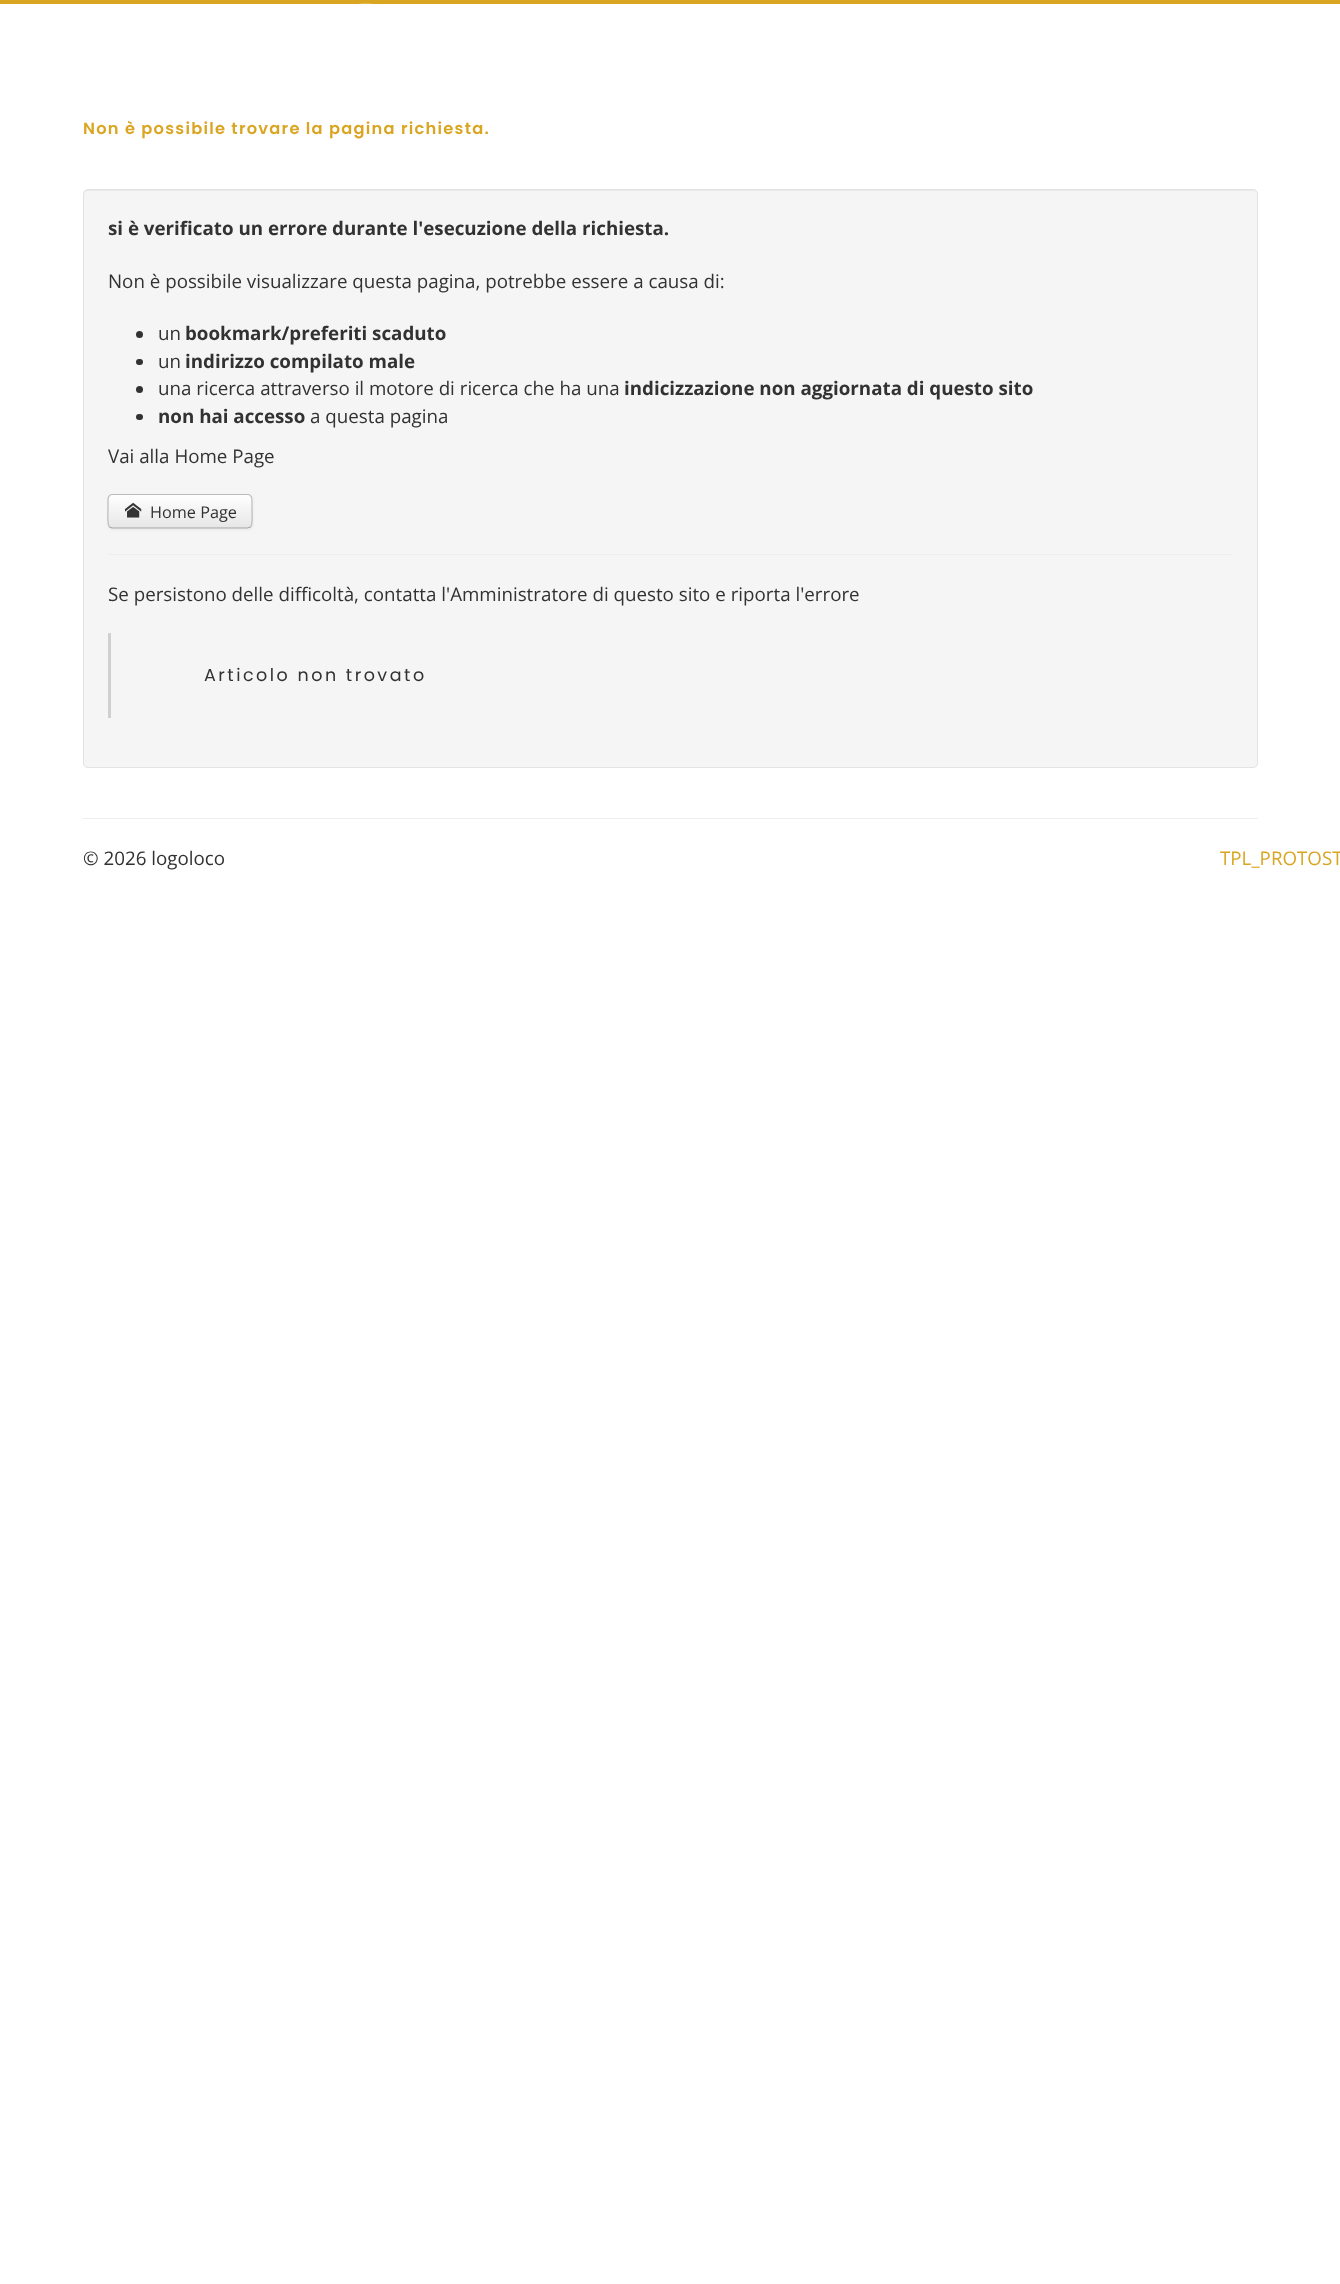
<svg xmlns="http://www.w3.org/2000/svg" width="1340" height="2284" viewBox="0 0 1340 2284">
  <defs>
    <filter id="blur1" x="-50%" y="-200%" width="200%" height="500%"><feGaussianBlur stdDeviation="1"/></filter>
    <clipPath id="clip1"><rect x="108" y="494" width="145" height="35" rx="5"/></clipPath>
    <linearGradient id="g1" gradientUnits="userSpaceOnUse" x1="180" y1="495" x2="180" y2="528"><stop offset="0" stop-color="#ffffff"/><stop offset="1" stop-color="#e6e6e6"/></linearGradient>
  </defs>
  <rect width="100%" height="100%" fill="#ffffff"/>
  <rect x="0" y="0" width="1340" height="4" fill="#daa520"/>
  <image x="358" y="3" width="15" height="1" href="img1.png"/>
  <text x="83" y="134" font-family="Poppins" font-size="16.25" font-weight="600" letter-spacing="1.25" fill="#daa520">Non è possibile trovare la pagina richiesta.</text>
  <rect x="83" y="189" width="1175" height="579" rx="5" fill="#f5f5f5"/>
  <path d="M88 191H1252C1255 191 1256 193 1256 195C1256 192 1255 190 1252 190H88C85 190 84 192 84 195C84 193 85 191 88 191Z" fill="#e9e9e9"/>
  <rect x="83.5" y="189.5" width="1174" height="578" rx="4.5" fill="none" stroke="#e3e3e3"/>
  <text x="108" y="235" font-family="Open Sans" font-size="18.75" font-weight="bold" fill="#323232">si è verificato un errore durante l'esecuzione della richiesta.</text>
  <text x="108" y="288" font-family="Open Sans" font-size="18.75" fill="#323232">Non è possibile visualizzare questa pagina, potrebbe essere a causa di:</text>
  <circle cx="139.5" cy="334.5" r="3.5" fill="#323232"/>
  <text x="158" y="340" font-family="Open Sans" font-size="18.75" fill="#323232">un</text>
  <text x="185" y="340" font-family="Open Sans" font-size="18.75" font-weight="bold" fill="#323232">bookmark/preferiti scaduto</text>
  <rect x="136" y="359" width="7" height="6" rx="3" fill="#323232"/>
  <text x="158" y="368" font-family="Open Sans" font-size="18.75" fill="#323232">un</text>
  <text x="185" y="368" font-family="Open Sans" font-size="18.75" font-weight="bold" fill="#323232">indirizzo compilato male</text>
  <circle cx="139.5" cy="389.5" r="3.5" fill="#323232"/>
  <text x="158" y="395" font-family="Open Sans" font-size="18.75" fill="#323232">una ricerca attraverso il motore di ricerca che ha una</text>
  <text x="624" y="395" font-family="Open Sans" font-size="18.75" font-weight="bold" fill="#323232">indicizzazione non aggiornata di questo sito</text>
  <rect x="136" y="414" width="7" height="6" rx="3" fill="#323232"/>
  <text x="158" y="423" font-family="Open Sans" font-size="18.75" font-weight="bold" fill="#323232">non hai accesso</text>
  <text x="310" y="423" font-family="Open Sans" font-size="18.75" fill="#323232">a questa pagina</text>
  <text x="108" y="463" font-family="Open Sans" font-size="18.75" fill="#323232">Vai alla Home Page</text>
  <rect x="108" y="495" width="145" height="35" rx="5" fill="#000000" fill-opacity="0.05" filter="url(#blur1)"/>
  <rect x="108" y="494" width="145" height="35" rx="5" fill="#f5f5f5"/>
  <g clip-path="url(#clip1)">
    <rect x="108" y="495" width="145" height="33" fill="url(#g1)"/>
  </g>
  <path d="M250.5 527L247.5 528H112L109.5 527" fill="none" stroke="#a2a2a2" stroke-width="1.2"/>
  <path d="M109.5 527C107 524.5 108 514.5 108 511V503C108 499.5 107.5 494.5 112.5 494.5H247.5C252.5 494.5 252 499.5 252 503V511C252 514.5 253 524.5 250.5 527" fill="none" stroke="#bbbbbb" stroke-width="1.2"/>
  <image x="125" y="502" width="17" height="16" href="img2.png"/>
  <text x="150" y="518" font-family="Open Sans" font-size="16.25" fill="#323232">Home Page</text>
  <rect x="108" y="554" width="1125" height="1" fill="#eeeeee"/>
  <text x="108" y="601" font-family="Open Sans" font-size="18.75" fill="#323232">Se persistono delle difficoltà, contatta l'Amministratore di questo sito e riporta l'errore</text>
  <rect x="108" y="633" width="3" height="85" fill="#d0d0d0"/>
  <text x="204" y="681" font-family="Poppins" font-size="17.5" letter-spacing="2.5" fill="#323232">Articolo non trovato</text>
  <rect x="83" y="818" width="1175" height="1" fill="#eeeeee"/>
  <text x="83" y="865" font-family="Open Sans" font-size="18.75" fill="#323232">© 2026 logoloco</text>
  <text x="1220" y="865" font-family="Open Sans" font-size="18.75" fill="#daa520">TPL_PROTOST</text>
</svg>
